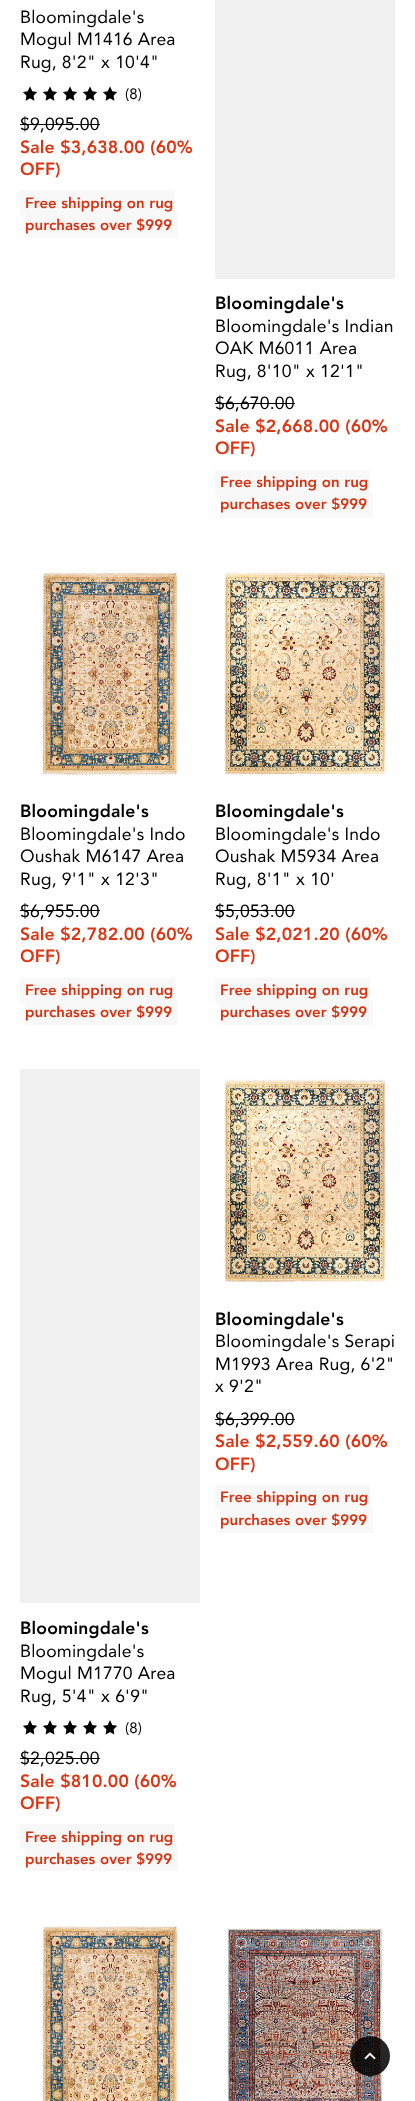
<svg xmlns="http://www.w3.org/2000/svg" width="415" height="2101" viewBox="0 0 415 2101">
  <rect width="100%" height="100%" fill="#ffffff"/>
  <text x="20" y="23" font-family="Avenir" font-size="17.5" letter-spacing="0.2" fill="#000000">Bloomingdale's</text>
  <text x="20" y="45" font-family="Avenir" font-size="17.5" letter-spacing="0.2" fill="#000000">Mogul M1416 Area</text>
  <text x="20" y="68" font-family="Avenir" font-size="17.5" letter-spacing="0.2" fill="#000000">Rug, 8'2" x 10'4"</text>
  <image x="23" y="86" width="14" height="15" href="img1.png"/>
  <image x="43" y="86" width="14" height="15" href="img1.png"/>
  <image x="63" y="86" width="14" height="15" href="img1.png"/>
  <image x="83" y="86" width="14" height="15" href="img1.png"/>
  <image x="103" y="86" width="14" height="15" href="img1.png"/>
  <text x="125" y="99" font-family="Avenir" font-size="15" letter-spacing="0.1" fill="#000000">(8)</text>
  <text x="20" y="130" font-family="Avenir" font-size="17.5" letter-spacing="0.2" fill="#000000">$9,095.00</text>
  <rect x="20" y="124" width="80" height="1" fill="#000000"/>
  <text x="20" y="153" font-family="Avenir" font-size="17.5" font-weight="900" letter-spacing="0.2" fill="#de3412">Sale $3,638.00 (60%</text>
  <text x="20" y="175" font-family="Avenir" font-size="17.5" font-weight="900" letter-spacing="0.2" fill="#de3412">OFF)</text>
  <rect x="20" y="190" width="155" height="25" fill="#f8f8f8"/>
  <text x="25" y="208" font-family="Avenir" font-size="15" font-weight="900" letter-spacing="0.1" fill="#d73312">Free shipping on rug</text>
  <rect x="25" y="213" width="153" height="25" fill="#f8f8f8"/>
  <text x="25" y="230" font-family="Avenir" font-size="15" font-weight="900" letter-spacing="0.1" fill="#d73312">purchases over $999</text>
  <rect x="215" y="0" width="180" height="279" fill="#f1f1f1"/>
  <text x="215" y="309" font-family="Avenir" font-size="17.5" font-weight="900" letter-spacing="0.2" fill="#000000">Bloomingdale's</text>
  <text x="215" y="332" font-family="Avenir" font-size="17.5" letter-spacing="0.2" fill="#000000">Bloomingdale's Indian</text>
  <text x="215" y="354" font-family="Avenir" font-size="17.5" letter-spacing="0.2" fill="#000000">OAK M6011 Area</text>
  <text x="215" y="377" font-family="Avenir" font-size="17.5" letter-spacing="0.2" fill="#000000">Rug, 8'10" x 12'1"</text>
  <text x="215" y="409" font-family="Avenir" font-size="17.5" letter-spacing="0.2" fill="#000000">$6,670.00</text>
  <rect x="215" y="403" width="80" height="1" fill="#000000"/>
  <text x="215" y="432" font-family="Avenir" font-size="17.5" font-weight="900" letter-spacing="0.2" fill="#de3412">Sale $2,668.00 (60%</text>
  <text x="215" y="454" font-family="Avenir" font-size="17.5" font-weight="900" letter-spacing="0.2" fill="#de3412">OFF)</text>
  <rect x="215" y="470" width="155" height="25" fill="#f8f8f8"/>
  <text x="220" y="487" font-family="Avenir" font-size="15" font-weight="900" letter-spacing="0.1" fill="#d73312">Free shipping on rug</text>
  <rect x="220" y="493" width="153" height="25" fill="#f8f8f8"/>
  <text x="220" y="509" font-family="Avenir" font-size="15" font-weight="900" letter-spacing="0.1" fill="#d73312">purchases over $999</text>
  <image x="41" y="572" width="139" height="204" href="img2.png"/>
  <text x="20" y="817" font-family="Avenir" font-size="17.5" font-weight="900" letter-spacing="0.2" fill="#000000">Bloomingdale's</text>
  <text x="20" y="840" font-family="Avenir" font-size="17.5" letter-spacing="0.2" fill="#000000">Bloomingdale's Indo</text>
  <text x="20" y="862" font-family="Avenir" font-size="17.5" letter-spacing="0.2" fill="#000000">Oushak M6147 Area</text>
  <text x="20" y="885" font-family="Avenir" font-size="17.5" letter-spacing="0.2" fill="#000000">Rug, 9'1" x 12'3"</text>
  <text x="20" y="917" font-family="Avenir" font-size="17.5" letter-spacing="0.2" fill="#000000">$6,955.00</text>
  <rect x="20" y="910" width="80" height="1" fill="#000000"/>
  <text x="20" y="940" font-family="Avenir" font-size="17.5" font-weight="900" letter-spacing="0.2" fill="#de3412">Sale $2,782.00 (60%</text>
  <text x="20" y="962" font-family="Avenir" font-size="17.5" font-weight="900" letter-spacing="0.2" fill="#de3412">OFF)</text>
  <rect x="20" y="978" width="155" height="25" fill="#f8f8f8"/>
  <text x="25" y="995" font-family="Avenir" font-size="15" font-weight="900" letter-spacing="0.1" fill="#d73312">Free shipping on rug</text>
  <rect x="25" y="1000" width="153" height="25" fill="#f8f8f8"/>
  <text x="25" y="1017" font-family="Avenir" font-size="15" font-weight="900" letter-spacing="0.1" fill="#d73312">purchases over $999</text>
  <image x="223" y="572" width="165" height="204" href="img3.png"/>
  <text x="215" y="817" font-family="Avenir" font-size="17.5" font-weight="900" letter-spacing="0.2" fill="#000000">Bloomingdale's</text>
  <text x="215" y="840" font-family="Avenir" font-size="17.5" letter-spacing="0.2" fill="#000000">Bloomingdale's Indo</text>
  <text x="215" y="862" font-family="Avenir" font-size="17.5" letter-spacing="0.2" fill="#000000">Oushak M5934 Area</text>
  <text x="215" y="885" font-family="Avenir" font-size="17.5" letter-spacing="0.2" fill="#000000">Rug, 8'1" x 10'</text>
  <text x="215" y="917" font-family="Avenir" font-size="17.5" letter-spacing="0.2" fill="#000000">$5,053.00</text>
  <rect x="215" y="910" width="80" height="1" fill="#000000"/>
  <text x="215" y="940" font-family="Avenir" font-size="17.5" font-weight="900" letter-spacing="0.2" fill="#de3412">Sale $2,021.20 (60%</text>
  <text x="215" y="962" font-family="Avenir" font-size="17.5" font-weight="900" letter-spacing="0.2" fill="#de3412">OFF)</text>
  <rect x="215" y="978" width="155" height="25" fill="#f8f8f8"/>
  <text x="220" y="995" font-family="Avenir" font-size="15" font-weight="900" letter-spacing="0.1" fill="#d73312">Free shipping on rug</text>
  <rect x="220" y="1000" width="153" height="25" fill="#f8f8f8"/>
  <text x="220" y="1017" font-family="Avenir" font-size="15" font-weight="900" letter-spacing="0.1" fill="#d73312">purchases over $999</text>
  <image x="223" y="1079" width="165" height="204" href="img4.png"/>
  <text x="215" y="1325" font-family="Avenir" font-size="17.5" font-weight="900" letter-spacing="0.2" fill="#000000">Bloomingdale's</text>
  <text x="215" y="1347" font-family="Avenir" font-size="17.5" letter-spacing="0.2" fill="#000000">Bloomingdale's Serapi</text>
  <text x="215" y="1370" font-family="Avenir" font-size="17.5" letter-spacing="0.2" fill="#000000">M1993 Area Rug, 6'2"</text>
  <text x="215" y="1392" font-family="Avenir" font-size="17.5" letter-spacing="0.2" fill="#000000">x 9'2"</text>
  <text x="215" y="1425" font-family="Avenir" font-size="17.5" letter-spacing="0.2" fill="#000000">$6,399.00</text>
  <rect x="215" y="1419" width="80" height="1" fill="#000000"/>
  <text x="215" y="1447" font-family="Avenir" font-size="17.5" font-weight="900" letter-spacing="0.2" fill="#de3412">Sale $2,559.60 (60%</text>
  <text x="215" y="1470" font-family="Avenir" font-size="17.5" font-weight="900" letter-spacing="0.2" fill="#de3412">OFF)</text>
  <rect x="215" y="1485" width="155" height="25" fill="#f8f8f8"/>
  <text x="220" y="1502" font-family="Avenir" font-size="15" font-weight="900" letter-spacing="0.1" fill="#d73312">Free shipping on rug</text>
  <rect x="220" y="1508" width="153" height="25" fill="#f8f8f8"/>
  <text x="220" y="1525" font-family="Avenir" font-size="15" font-weight="900" letter-spacing="0.1" fill="#d73312">purchases over $999</text>
  <rect x="20" y="1069" width="180" height="534" fill="#f1f1f1"/>
  <text x="20" y="1634" font-family="Avenir" font-size="17.5" font-weight="900" letter-spacing="0.2" fill="#000000">Bloomingdale's</text>
  <text x="20" y="1657" font-family="Avenir" font-size="17.5" letter-spacing="0.2" fill="#000000">Bloomingdale's</text>
  <text x="20" y="1679" font-family="Avenir" font-size="17.5" letter-spacing="0.2" fill="#000000">Mogul M1770 Area</text>
  <text x="20" y="1702" font-family="Avenir" font-size="17.5" letter-spacing="0.2" fill="#000000">Rug, 5'4" x 6'9"</text>
  <image x="23" y="1720" width="14" height="15" href="img5.png"/>
  <image x="43" y="1720" width="14" height="15" href="img5.png"/>
  <image x="63" y="1720" width="14" height="15" href="img5.png"/>
  <image x="83" y="1720" width="14" height="15" href="img5.png"/>
  <image x="103" y="1720" width="14" height="15" href="img5.png"/>
  <text x="125" y="1733" font-family="Avenir" font-size="15" letter-spacing="0.1" fill="#000000">(8)</text>
  <text x="20" y="1764" font-family="Avenir" font-size="17.5" letter-spacing="0.2" fill="#000000">$2,025.00</text>
  <rect x="20" y="1758" width="80" height="1" fill="#000000"/>
  <text x="20" y="1787" font-family="Avenir" font-size="17.5" font-weight="900" letter-spacing="0.2" fill="#de3412">Sale $810.00 (60%</text>
  <text x="20" y="1809" font-family="Avenir" font-size="17.5" font-weight="900" letter-spacing="0.2" fill="#de3412">OFF)</text>
  <rect x="20" y="1824" width="155" height="25" fill="#f8f8f8"/>
  <text x="25" y="1842" font-family="Avenir" font-size="15" font-weight="900" letter-spacing="0.1" fill="#d73312">Free shipping on rug</text>
  <rect x="25" y="1846" width="153" height="25" fill="#f8f8f8"/>
  <text x="25" y="1864" font-family="Avenir" font-size="15" font-weight="900" letter-spacing="0.1" fill="#d73312">purchases over $999</text>
  <image x="41" y="1925" width="139" height="176" href="img6.png"/>
  <image x="227" y="1927" width="157" height="174" href="img7.png"/>
  <circle cx="370" cy="2056" r="20" fill="#000000" fill-opacity="0.85"/>
  <image x="364" y="2052" width="12" height="8" href="img8.png"/>
</svg>
